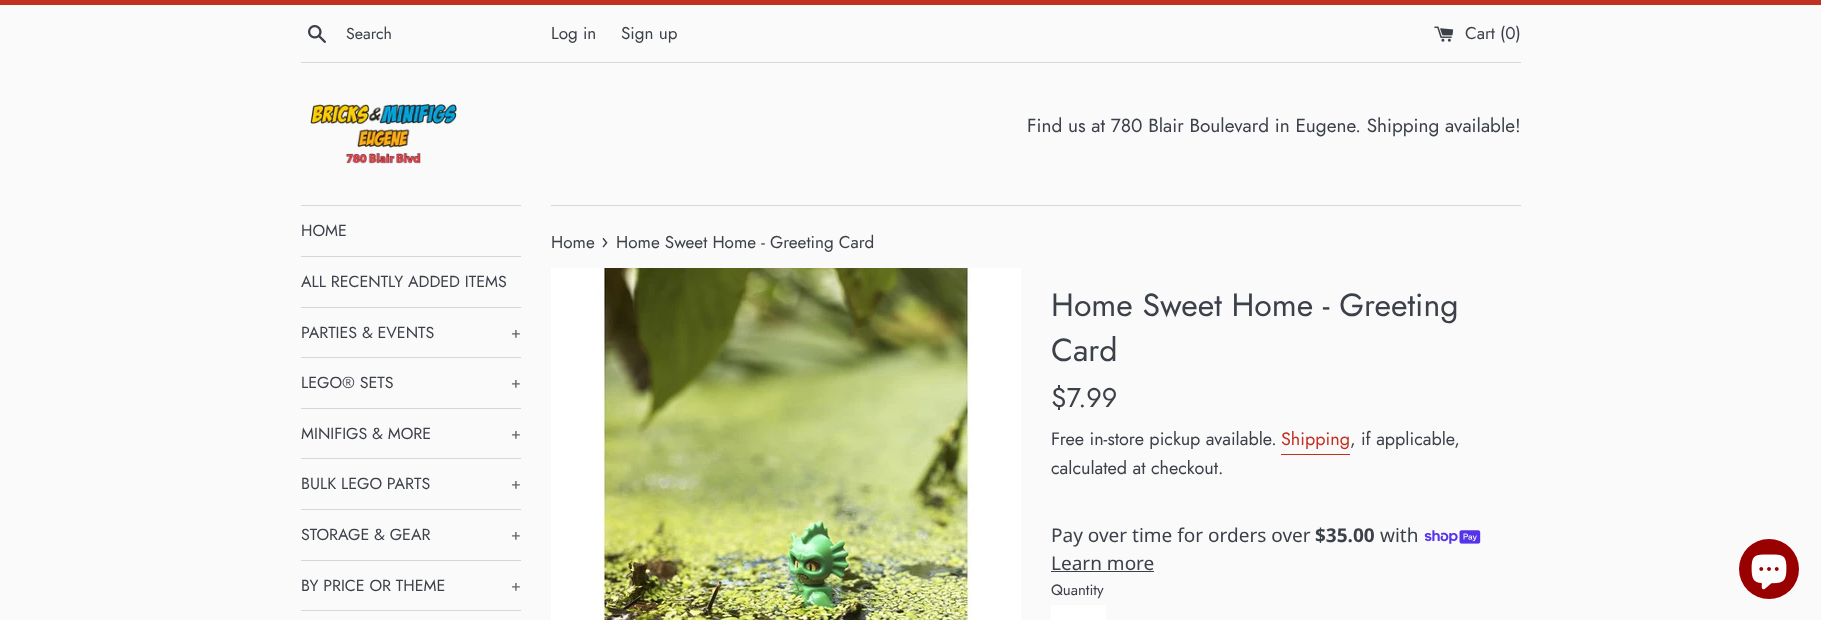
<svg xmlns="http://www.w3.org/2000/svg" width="1821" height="620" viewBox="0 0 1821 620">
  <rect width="100%" height="100%" fill="#fafafa"/>
  <rect x="0" y="0" width="1821" height="5" fill="#c13121"/>
  <image x="308" y="25" width="18" height="18" href="img1.png"/>
  <text x="346" y="39" font-family="Jost" font-size="16" fill="#3c4049">Search</text>
  <text x="551" y="39" font-family="Jost" font-size="17.1" fill="#3c4049">Log in</text>
  <text x="621" y="39" font-family="Jost" font-size="17.1" fill="#3c4049">Sign up</text>
  <image x="1434" y="26" width="20" height="16" href="img2.png"/>
  <text x="1465" y="39" font-family="Jost" font-size="17.1" fill="#3c4049">Cart (0)</text>
  <rect x="301" y="62" width="1220" height="1" fill="#d7d8d2"/>
  <image x="310" y="104" width="147" height="60" href="img3.png"/>
  <text x="1027" y="132" font-family="Jost" font-size="19" fill="#3c4049">Find us at 780 Blair Boulevard in Eugene. Shipping available!</text>
  <rect x="301" y="205" width="220" height="1" fill="#d7d8d2"/>
  <rect x="301" y="256" width="220" height="1" fill="#d7d8d2"/>
  <text x="301" y="236" font-family="Jost" font-size="16" fill="#3c4049">HOME</text>
  <rect x="301" y="307" width="220" height="1" fill="#d7d8d2"/>
  <text x="301" y="287" font-family="Jost" font-size="16" fill="#3c4049">ALL RECENTLY ADDED ITEMS</text>
  <rect x="301" y="357" width="220" height="1" fill="#d7d8d2"/>
  <text x="301" y="338" font-family="Jost" font-size="16" fill="#3c4049">PARTIES &amp; EVENTS</text>
  <text x="511" y="338" font-family="Jost" font-size="16" fill="#62656c">+</text>
  <rect x="301" y="408" width="220" height="1" fill="#d7d8d2"/>
  <text x="301" y="388" font-family="Jost" font-size="16" fill="#3c4049">LEGO® SETS</text>
  <text x="511" y="388" font-family="Jost" font-size="16" fill="#62656c">+</text>
  <rect x="301" y="458" width="220" height="1" fill="#d7d8d2"/>
  <text x="301" y="439" font-family="Jost" font-size="16" fill="#3c4049">MINIFIGS &amp; MORE</text>
  <text x="511" y="439" font-family="Jost" font-size="16" fill="#62656c">+</text>
  <rect x="301" y="509" width="220" height="1" fill="#d7d8d2"/>
  <text x="301" y="489" font-family="Jost" font-size="16" fill="#3c4049">BULK LEGO PARTS</text>
  <text x="511" y="489" font-family="Jost" font-size="16" fill="#62656c">+</text>
  <rect x="301" y="560" width="220" height="1" fill="#d7d8d2"/>
  <text x="301" y="540" font-family="Jost" font-size="16" fill="#3c4049">STORAGE &amp; GEAR</text>
  <text x="511" y="540" font-family="Jost" font-size="16" fill="#62656c">+</text>
  <rect x="301" y="610" width="220" height="1" fill="#d7d8d2"/>
  <text x="301" y="591" font-family="Jost" font-size="16" fill="#3c4049">BY PRICE OR THEME</text>
  <text x="511" y="591" font-family="Jost" font-size="16" fill="#62656c">+</text>
  <rect x="551" y="205" width="970" height="1" fill="#d7d8d2"/>
  <text x="551" y="248" font-family="Jost" font-size="17.1" fill="#3c4049">Home</text>
  <text x="601" y="248" font-family="Jost" font-size="21" fill="#3c4049">›</text>
  <text x="616" y="248" font-family="Jost" font-size="17.1" fill="#3c4049">Home Sweet Home - Greeting Card</text>
  <image x="551" y="268" width="470" height="352" href="img4.png"/>
  <text x="1051" y="316" font-family="Jost" font-size="32" fill="#3c4049">Home Sweet Home - Greeting</text>
  <text x="1051" y="361" font-family="Jost" font-size="32" fill="#3c4049">Card</text>
  <text x="1051" y="407" font-family="Jost" font-size="27" fill="#3c4049">$7.99</text>
  <text x="1051" y="445" font-family="Jost" font-size="18" fill="#3c4049">Free in-store pickup available.</text>
  <text x="1281" y="445" font-family="Jost" font-size="18" fill="#c13121">Shipping</text>
  <rect x="1281" y="454" width="69" height="1" fill="#c13121"/>
  <text x="1350" y="445" font-family="Jost" font-size="18" fill="#3c4049">, if applicable,</text>
  <text x="1051" y="474" font-family="Jost" font-size="18" fill="#3c4049">calculated at checkout.</text>
  <text x="1051" y="542" font-family="Noto Sans" font-size="19" fill="#3c4049">Pay over time for orders over</text>
  <text x="1315" y="542" font-family="Noto Sans" font-size="19" font-weight="bold" fill="#3c4049">$35.00</text>
  <text x="1380" y="542" font-family="Noto Sans" font-size="19" fill="#3c4049">with</text>
  <image x="1424" y="530" width="57" height="14" href="img5.png"/>
  <text x="1051" y="570" font-family="Noto Sans" font-size="19" fill="#3c4049">Learn more</text>
  <rect x="1051" y="571" width="103" height="1" fill="#3c4049"/>
  <text x="1051" y="595" font-family="Jost" font-size="15" fill="#3c4049">Quantity</text>
  <rect x="1051" y="605" width="55" height="15" fill="#ffffff"/>
  <circle cx="1769" cy="569" r="30" fill="#990000"/>
  <image x="1751" y="554" width="36" height="36" href="img6.png"/>
</svg>
